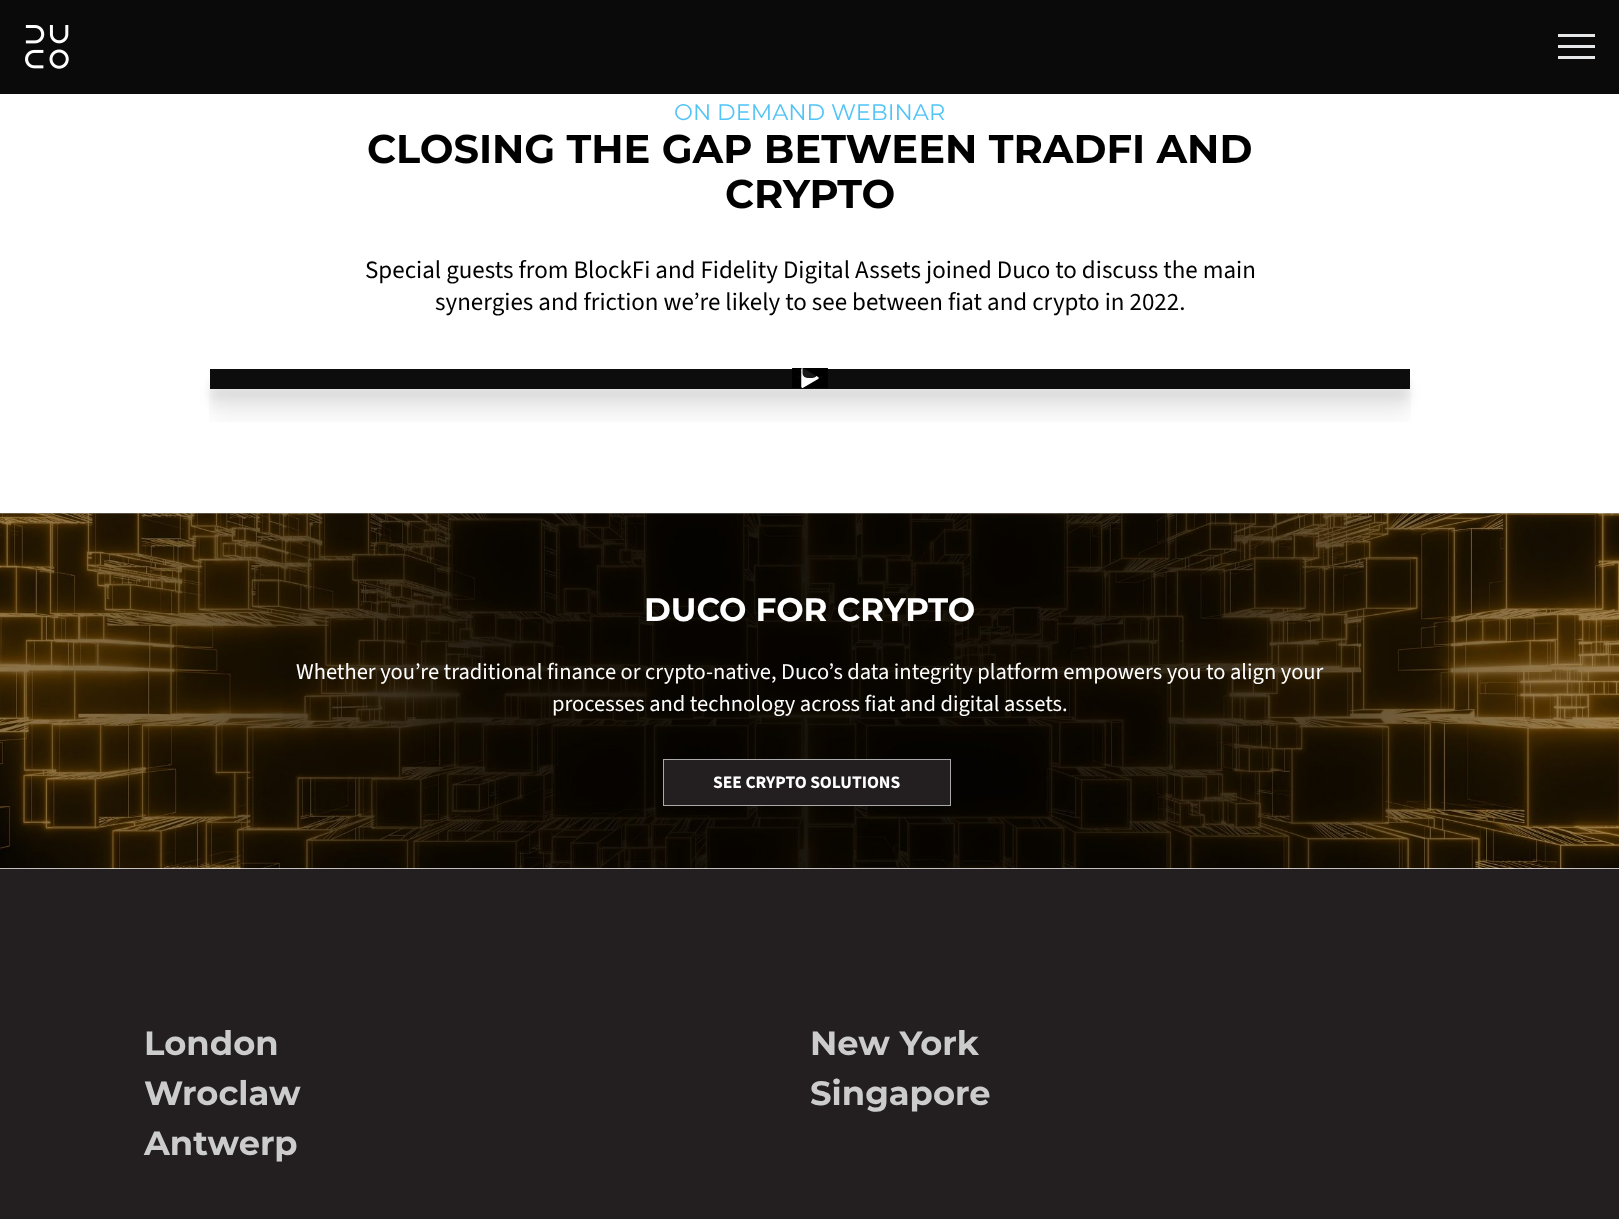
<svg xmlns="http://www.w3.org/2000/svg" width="1619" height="1219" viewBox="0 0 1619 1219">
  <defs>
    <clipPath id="clip1"><rect x="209" y="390" width="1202" height="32"/></clipPath>
    <filter id="blur1" x="-50%" y="-200%" width="200%" height="500%"><feGaussianBlur stdDeviation="11"/></filter>
    <clipPath id="clip2"><path d="M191 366H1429V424H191ZM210 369H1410V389H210Z" clip-rule="evenodd"/></clipPath>
    <filter id="blur2" x="-50%" y="-200%" width="200%" height="500%"><feGaussianBlur stdDeviation="6"/></filter>
    <clipPath id="clip3"><path d="M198 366H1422V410H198ZM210 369H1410V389H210Z" clip-rule="evenodd"/></clipPath>
    <filter id="blur3" x="-50%" y="-200%" width="200%" height="500%"><feGaussianBlur stdDeviation="3.5"/></filter>
  </defs>
  <rect width="100%" height="100%" fill="#ffffff"/>
  <rect x="0" y="0" width="1619" height="94" fill="#0a0a0a"/>
  <image x="25" y="25" width="44" height="44" href="img1.png"/>
  <rect x="1558" y="34" width="37" height="3" fill="#e6e7e8"/>
  <rect x="1558" y="45" width="37" height="3" fill="#e6e7e8"/>
  <rect x="1558" y="56" width="37" height="3" fill="#e6e7e8"/>
  <text x="674" y="120" font-family="Montserrat" font-size="22.5" font-weight="100" fill="#52c4f6">ON DEMAND WEBINAR</text>
  <text x="367" y="163" font-family="'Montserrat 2'" font-size="40" font-weight="100" fill="#000000">CLOSING THE GAP BETWEEN TRADFI AND</text>
  <text x="725" y="208" font-family="'Montserrat 2'" font-size="40" font-weight="100" fill="#000000">CRYPTO</text>
  <text x="365" y="278" font-family="'Source Sans 3'" font-size="25" font-weight="200" fill="#000000">Special guests from BlockFi and Fidelity Digital Assets joined Duco to discuss the main</text>
  <text x="435" y="310" font-family="'Source Sans 3'" font-size="25" font-weight="200" fill="#000000">synergies and friction we’re likely to see between fiat and crypto in 2022.</text>
  <g clip-path="url(#clip1)">
    <rect x="210" y="396" width="1200" height="20" fill="#000000" fill-opacity="0.07" filter="url(#blur1)"/>
  </g>
  <g clip-path="url(#clip2)">
    <rect x="210" y="385" width="1200" height="20" fill="#000000" fill-opacity="0.06" filter="url(#blur2)"/>
  </g>
  <g clip-path="url(#clip3)">
    <rect x="210" y="378" width="1200" height="20" fill="#000000" fill-opacity="0.05" filter="url(#blur3)"/>
  </g>
  <rect x="210" y="369" width="1200" height="20" fill="#000000" fill-opacity="0.95"/>
  <image x="792" y="368" width="36" height="20" href="img2.png"/>
  <image x="0" y="513" width="1619" height="356" href="img3.png"/>
  <text x="644" y="621" font-family="'Montserrat 2'" font-size="32.5" font-weight="100" fill="#ffffff">DUCO FOR CRYPTO</text>
  <text x="296" y="679" font-family="'Source Sans 3'" font-size="22.5" font-weight="200" fill="#ffffff">Whether you’re traditional finance or crypto-native, Duco’s data integrity platform empowers you to align your</text>
  <text x="552" y="711" font-family="'Source Sans 3'" font-size="22.5" font-weight="200" fill="#ffffff">processes and technology across fiat and digital assets.</text>
  <rect x="663.5" y="759.5" width="287" height="46" fill="#231f20" stroke="#aaaaaa"/>
  <text x="713" y="788" font-family="'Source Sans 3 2'" font-size="17.5" font-weight="200" fill="#ffffff">SEE CRYPTO SOLUTIONS</text>
  <rect x="0" y="869" width="1619" height="350" fill="#231f20"/>
  <text x="144" y="1055" font-family="'Montserrat 2'" font-size="33.75" font-weight="100" fill="#cccccc">London</text>
  <text x="144" y="1105" font-family="'Montserrat 2'" font-size="33.75" font-weight="100" fill="#cccccc">Wroclaw</text>
  <text x="144" y="1155" font-family="'Montserrat 2'" font-size="33.75" font-weight="100" fill="#cccccc">Antwerp</text>
  <text x="810" y="1055" font-family="'Montserrat 2'" font-size="33.75" font-weight="100" fill="#cccccc">New York</text>
  <text x="810" y="1105" font-family="'Montserrat 2'" font-size="33.75" font-weight="100" fill="#cccccc">Singapore</text>
</svg>
